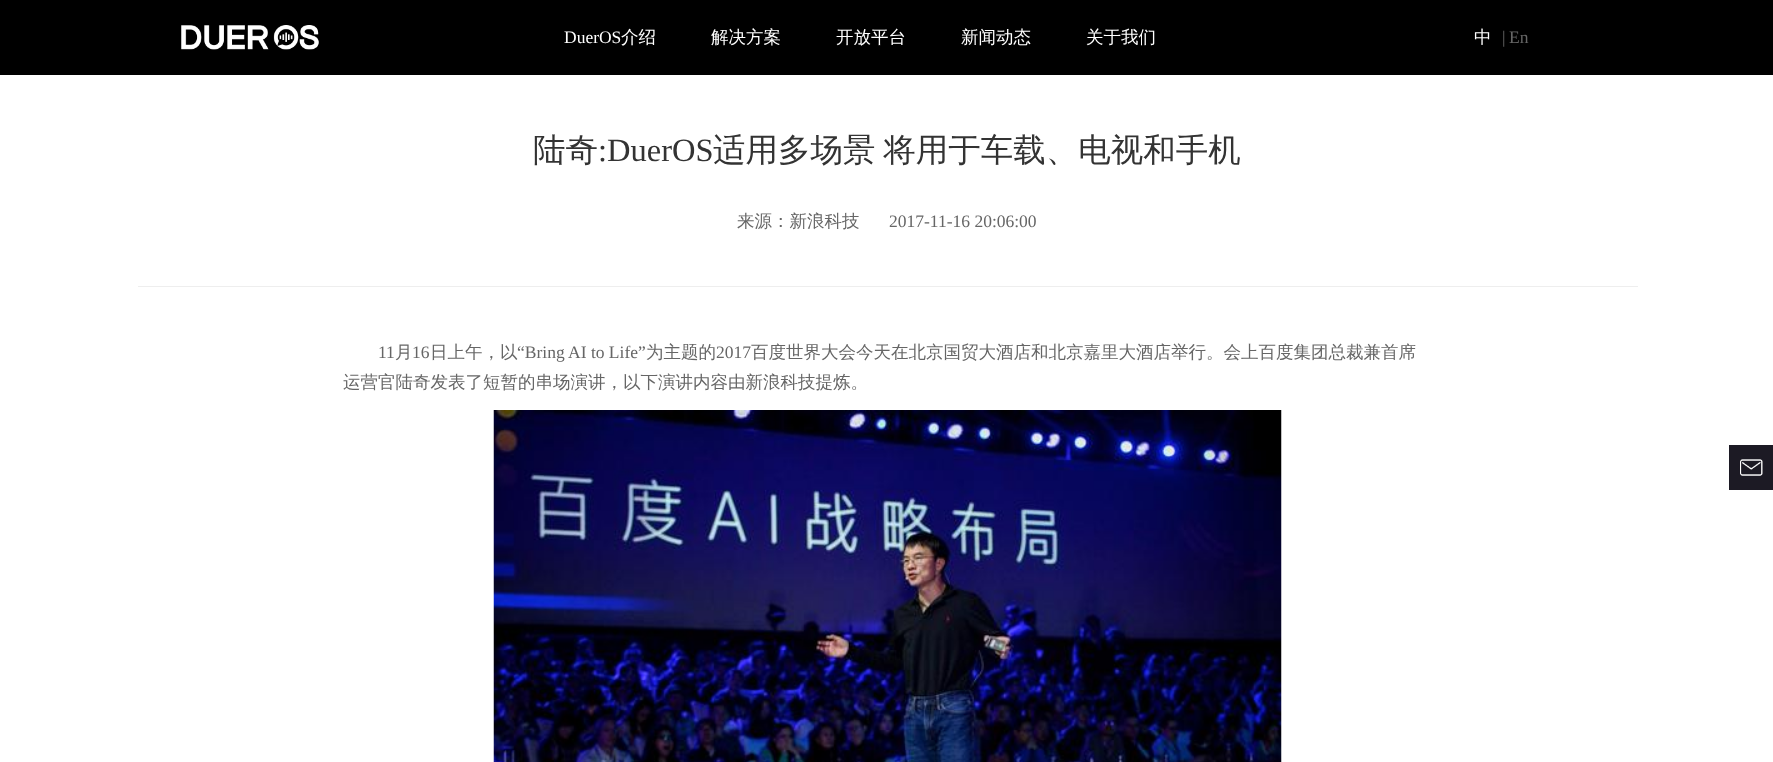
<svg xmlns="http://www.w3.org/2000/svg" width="1773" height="762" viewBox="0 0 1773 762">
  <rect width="100%" height="100%" fill="#ffffff"/>
  <rect x="0" y="0" width="1773" height="75" fill="#000000"/>
  <image x="181" y="25" width="138" height="25" href="img1.png"/>
  <text x="564" y="43" font-family="Liberation Serif" font-size="17.5" fill="#ffffff">DuerOS</text>
  <text x="621" y="43" font-family="WenQuanYi Zen Hei" font-size="17.5" font-weight="500" fill="#ffffff">介绍</text>
  <text x="711" y="43" font-family="WenQuanYi Zen Hei" font-size="17.5" font-weight="500" fill="#ffffff">解决方案</text>
  <text x="836" y="43" font-family="WenQuanYi Zen Hei" font-size="17.5" font-weight="500" fill="#ffffff">开放平台</text>
  <text x="961" y="43" font-family="WenQuanYi Zen Hei" font-size="17.5" font-weight="500" fill="#ffffff">新闻动态</text>
  <text x="1086" y="43" font-family="WenQuanYi Zen Hei" font-size="17.5" font-weight="500" fill="#ffffff">关于我们</text>
  <text x="1474" y="43" font-family="WenQuanYi Zen Hei" font-size="17.5" font-weight="500" fill="#ffffff">中</text>
  <text x="1502" y="43" font-family="Liberation Serif" font-size="17.5" fill="#666666">|</text>
  <text x="1509" y="43" font-family="Liberation Serif" font-size="17.5" fill="#666666">En</text>
  <rect x="138" y="286" width="1500" height="1" fill="#eeeeee"/>
  <text x="533" y="161" font-family="WenQuanYi Zen Hei" font-size="32.5" font-weight="500" fill="#333333">陆奇</text>
  <text x="598" y="161" font-family="Liberation Serif" font-size="32.5" fill="#333333">:DuerOS</text>
  <text x="713" y="161" word-spacing="-2" font-family="WenQuanYi Zen Hei" font-size="32.5" font-weight="500" fill="#333333">适用多场景 将用于车载、电视和手机</text>
  <text x="737" y="227" font-family="WenQuanYi Zen Hei" font-size="17.5" font-weight="500" fill="#666666">来源：新浪科技</text>
  <text x="889" y="227" font-family="Liberation Serif" font-size="17.5" fill="#666666">2017-11-16 20:06:00</text>
  <text x="378" y="358" font-family="Liberation Serif" font-size="17.5" fill="#666666">11</text>
  <text x="395" y="358" font-family="WenQuanYi Zen Hei" font-size="17.5" font-weight="500" fill="#666666">月</text>
  <text x="412" y="358" font-family="Liberation Serif" font-size="17.5" fill="#666666">16</text>
  <text x="430" y="358" font-family="WenQuanYi Zen Hei" font-size="17.5" font-weight="500" fill="#666666">日上午，以</text>
  <text x="517" y="358" font-family="Liberation Serif" font-size="17.5" fill="#666666">“Bring AI to Life”</text>
  <text x="646" y="358" font-family="WenQuanYi Zen Hei" font-size="17.5" font-weight="500" fill="#666666">为主题的</text>
  <text x="716" y="358" font-family="Liberation Serif" font-size="17.5" fill="#666666">2017</text>
  <text x="751" y="358" font-family="WenQuanYi Zen Hei" font-size="17.5" font-weight="500" fill="#666666">百度世界大会今天在北京国贸大酒店和北京嘉里大酒店举行。会上百度集团总裁兼首席</text>
  <text x="343" y="388" font-family="WenQuanYi Zen Hei" font-size="17.5" font-weight="500" fill="#666666">运营官陆奇发表了短暂的串场演讲，以下演讲内容由新浪科技提炼。</text>
  <image x="493" y="410" width="789" height="352" href="img2.png"/>
  <rect x="1729" y="445" width="44" height="45" fill="#1c1a24"/>
  <image x="1740" y="459" width="23" height="17" href="img3.png"/>
</svg>
